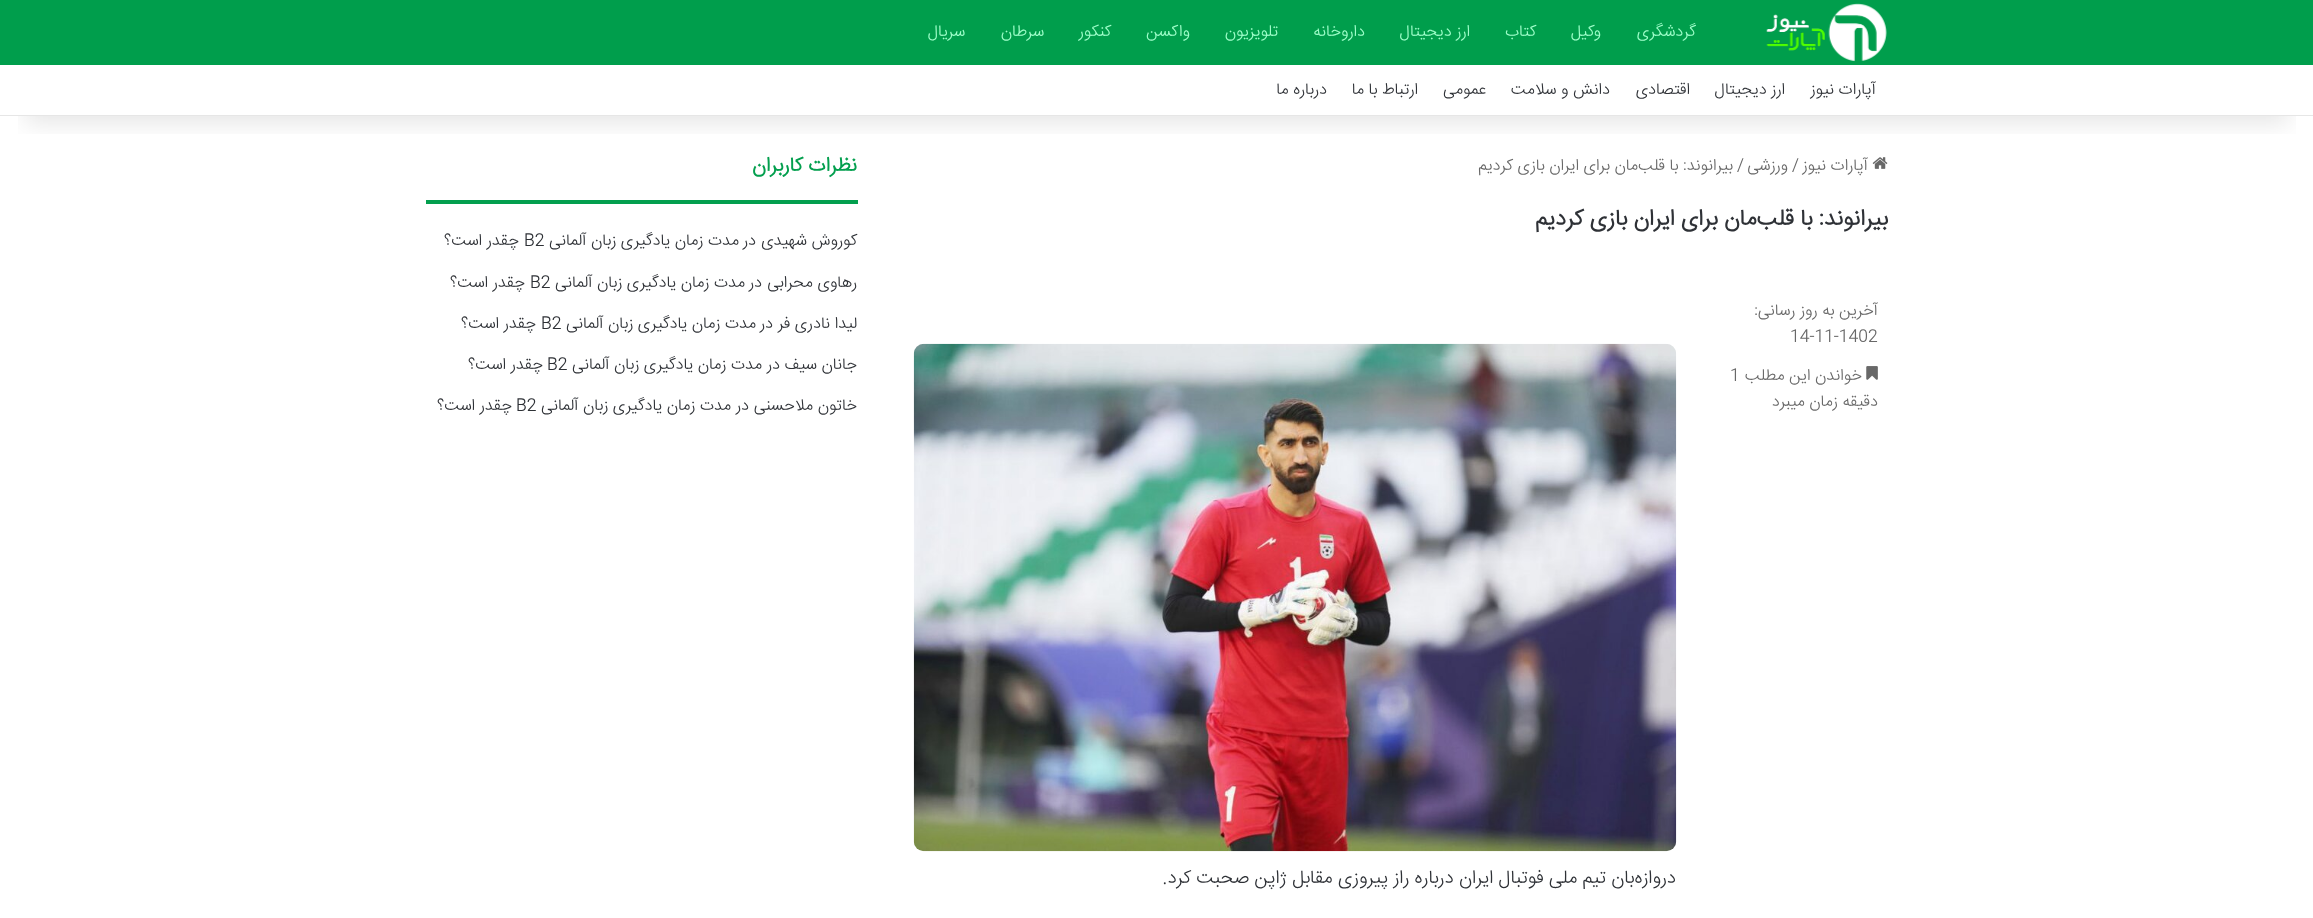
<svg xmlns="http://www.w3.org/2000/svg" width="2313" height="918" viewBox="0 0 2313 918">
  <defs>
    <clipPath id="clip1"><rect x="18" y="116" width="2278" height="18"/></clipPath>
    <filter id="blur1" x="-50%" y="-200%" width="200%" height="500%"><feGaussianBlur stdDeviation="12.5"/></filter>
  </defs>
  <rect width="100%" height="100%" fill="#ffffff"/>
  <image x="1872" y="157" width="16" height="12" href="img2.png"/>
  <g clip-path="url(#clip1)">
    <rect x="25" y="56" width="2264" height="67" fill="#000000" fill-opacity="0.1" filter="url(#blur1)"/>
  </g>
  <rect x="0" y="0" width="2313" height="65" fill="#009e4c"/>
  <image x="1766" y="3" width="121" height="59" href="img1.png"/>
  <text x="1696" y="36" font-family="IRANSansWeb" font-size="16.25" font-weight="300" direction="rtl" fill="#a0ffcb">گردشگری</text>
  <text x="1601" y="36" font-family="IRANSansWeb" font-size="16.25" font-weight="300" direction="rtl" fill="#a0ffcb">وکیل</text>
  <text x="1536" y="36" font-family="IRANSansWeb" font-size="16.25" font-weight="300" direction="rtl" fill="#a0ffcb">کتاب</text>
  <text x="1470" y="36" font-family="IRANSansWeb" font-size="16.25" font-weight="300" direction="rtl" fill="#a0ffcb">ارز دیجیتال</text>
  <text x="1365" y="36" font-family="IRANSansWeb" font-size="16.25" font-weight="300" direction="rtl" fill="#a0ffcb">داروخانه</text>
  <text x="1278" y="36" font-family="IRANSansWeb" font-size="16.25" font-weight="300" direction="rtl" fill="#a0ffcb">تلویزیون</text>
  <text x="1190" y="36" font-family="IRANSansWeb" font-size="16.25" font-weight="300" direction="rtl" fill="#a0ffcb">واکسن</text>
  <text x="1111" y="36" font-family="IRANSansWeb" font-size="16.25" font-weight="300" direction="rtl" fill="#a0ffcb">کنکور</text>
  <text x="1044" y="36" font-family="IRANSansWeb" font-size="16.25" font-weight="300" direction="rtl" fill="#a0ffcb">سرطان</text>
  <text x="965" y="36" font-family="IRANSansWeb" font-size="16.25" font-weight="300" direction="rtl" fill="#a0ffcb">سریال</text>
  <rect x="0" y="115" width="2313" height="1" fill="#e6e6e6"/>
  <text x="1876" y="94" font-family="IRANSansWeb" font-size="16.25" font-weight="300" direction="rtl" fill="#2e3136">آپارات نیوز</text>
  <text x="1785" y="94" font-family="IRANSansWeb" font-size="16.25" font-weight="300" direction="rtl" fill="#2e3136">ارز دیجیتال</text>
  <text x="1690" y="94" font-family="IRANSansWeb" font-size="16.25" font-weight="300" direction="rtl" fill="#2e3136">اقتصادی</text>
  <text x="1610" y="94" font-family="IRANSansWeb" font-size="16.25" font-weight="300" direction="rtl" fill="#2e3136">دانش و سلامت</text>
  <text x="1486" y="94" font-family="IRANSansWeb" font-size="16.25" font-weight="300" direction="rtl" fill="#2e3136">عمومی</text>
  <text x="1418" y="94" font-family="IRANSansWeb" font-size="16.25" font-weight="300" direction="rtl" fill="#2e3136">ارتباط با ما</text>
  <text x="1327" y="94" font-family="IRANSansWeb" font-size="16.25" font-weight="300" direction="rtl" fill="#2e3136">درباره ما</text>
  <text x="1868" y="170" font-family="IRANSansWeb" font-size="16.25" font-weight="300" direction="rtl" fill="#686868">آپارات نیوز</text>
  <text x="1792" y="170" font-family="IRANSansWeb" font-size="16.25" font-weight="300" fill="#686868">/</text>
  <text x="1788" y="170" font-family="IRANSansWeb" font-size="16.25" font-weight="300" direction="rtl" fill="#686868">ورزشی</text>
  <text x="1737" y="170" font-family="IRANSansWeb" font-size="16.25" font-weight="300" fill="#686868">/</text>
  <text x="1733" y="170" font-family="IRANSansWeb" font-size="16.25" font-weight="300" direction="rtl" fill="#686868">بیرانوند: با قلب‌مان برای ایران بازی کردیم</text>
  <text x="1888" y="225" font-family="IRANSansWeb" font-size="22.5" font-weight="bold" direction="rtl" fill="#2e3136">بیرانوند: با قلب‌مان برای ایران بازی کردیم</text>
  <text x="1878" y="315" font-family="IRANSansWeb" font-size="16.25" font-weight="300" direction="rtl" fill="#686868">آخرین به روز رسانی:</text>
  <text x="1790" y="341" font-family="IRANSansWeb" font-size="16.25" font-weight="300" fill="#686868">14-11-1402</text>
  <image x="1866" y="366" width="12" height="14" href="img3.png"/>
  <text x="1862" y="380" font-family="IRANSansWeb" font-size="16.25" font-weight="300" direction="rtl" fill="#686868">خواندن این مطلب</text>
  <text x="1730" y="380" font-family="IRANSansWeb" font-size="16.25" font-weight="300" fill="#686868">1</text>
  <text x="1878" y="406" font-family="IRANSansWeb" font-size="16.25" font-weight="300" direction="rtl" fill="#686868">دقیقه زمان میبرد</text>
  <image x="913" y="343" width="764" height="509" href="img4.png"/>
  <text x="1676" y="883" font-family="IRANSansWeb" font-size="18.75" font-weight="300" direction="rtl" fill="#2e3136">دروازه‌بان تیم ملی فوتبال ایران درباره راز پیروزی مقابل ژاپن صحبت کرد.</text>
  <rect x="426" y="200" width="432" height="4" fill="#039f4e"/>
  <text x="857" y="171" font-family="IRANSansWeb" font-size="20" font-weight="bold" direction="rtl" fill="#039f4e">نظرات کاربران</text>
  <text x="857" y="245" font-family="IRANSansWeb" font-size="16.25" font-weight="300" direction="rtl" fill="#2e3136">کوروش شهیدی</text>
  <text x="756" y="245" font-family="IRANSansWeb" font-size="16.25" font-weight="300" direction="rtl" fill="#2e3136">در</text>
  <text x="739" y="245" font-family="IRANSansWeb" font-size="16.25" font-weight="300" direction="rtl" fill="#2e3136">مدت زمان یادگیری زبان آلمانی</text>
  <text x="524" y="245" font-family="IRANSansWeb" font-size="16.25" font-weight="300" fill="#2e3136">B2</text>
  <text x="519" y="245" font-family="IRANSansWeb" font-size="16.25" font-weight="300" direction="rtl" fill="#2e3136">چقدر است؟</text>
  <text x="857" y="287" font-family="IRANSansWeb" font-size="16.25" font-weight="300" direction="rtl" fill="#2e3136">رهاوی محرابی</text>
  <text x="762" y="287" font-family="IRANSansWeb" font-size="16.25" font-weight="300" direction="rtl" fill="#2e3136">در</text>
  <text x="745" y="287" font-family="IRANSansWeb" font-size="16.25" font-weight="300" direction="rtl" fill="#2e3136">مدت زمان یادگیری زبان آلمانی</text>
  <text x="530" y="287" font-family="IRANSansWeb" font-size="16.25" font-weight="300" fill="#2e3136">B2</text>
  <text x="525" y="287" font-family="IRANSansWeb" font-size="16.25" font-weight="300" direction="rtl" fill="#2e3136">چقدر است؟</text>
  <text x="857" y="328" font-family="IRANSansWeb" font-size="16.25" font-weight="300" direction="rtl" fill="#2e3136">لیدا نادری فر</text>
  <text x="773" y="328" font-family="IRANSansWeb" font-size="16.25" font-weight="300" direction="rtl" fill="#2e3136">در</text>
  <text x="756" y="328" font-family="IRANSansWeb" font-size="16.25" font-weight="300" direction="rtl" fill="#2e3136">مدت زمان یادگیری زبان آلمانی</text>
  <text x="541" y="328" font-family="IRANSansWeb" font-size="16.25" font-weight="300" fill="#2e3136">B2</text>
  <text x="536" y="328" font-family="IRANSansWeb" font-size="16.25" font-weight="300" direction="rtl" fill="#2e3136">چقدر است؟</text>
  <text x="857" y="369" font-family="IRANSansWeb" font-size="16.25" font-weight="300" direction="rtl" fill="#2e3136">جانان سیف</text>
  <text x="780" y="369" font-family="IRANSansWeb" font-size="16.25" font-weight="300" direction="rtl" fill="#2e3136">در</text>
  <text x="762" y="369" font-family="IRANSansWeb" font-size="16.25" font-weight="300" direction="rtl" fill="#2e3136">مدت زمان یادگیری زبان آلمانی</text>
  <text x="547" y="369" font-family="IRANSansWeb" font-size="16.25" font-weight="300" fill="#2e3136">B2</text>
  <text x="543" y="369" font-family="IRANSansWeb" font-size="16.25" font-weight="300" direction="rtl" fill="#2e3136">چقدر است؟</text>
  <text x="857" y="410" font-family="IRANSansWeb" font-size="16.25" font-weight="300" direction="rtl" fill="#2e3136">خاتون ملاحسنی</text>
  <text x="749" y="410" font-family="IRANSansWeb" font-size="16.25" font-weight="300" direction="rtl" fill="#2e3136">در</text>
  <text x="731" y="410" font-family="IRANSansWeb" font-size="16.25" font-weight="300" direction="rtl" fill="#2e3136">مدت زمان یادگیری زبان آلمانی</text>
  <text x="516" y="410" font-family="IRANSansWeb" font-size="16.25" font-weight="300" fill="#2e3136">B2</text>
  <text x="512" y="410" font-family="IRANSansWeb" font-size="16.25" font-weight="300" direction="rtl" fill="#2e3136">چقدر است؟</text>
</svg>
